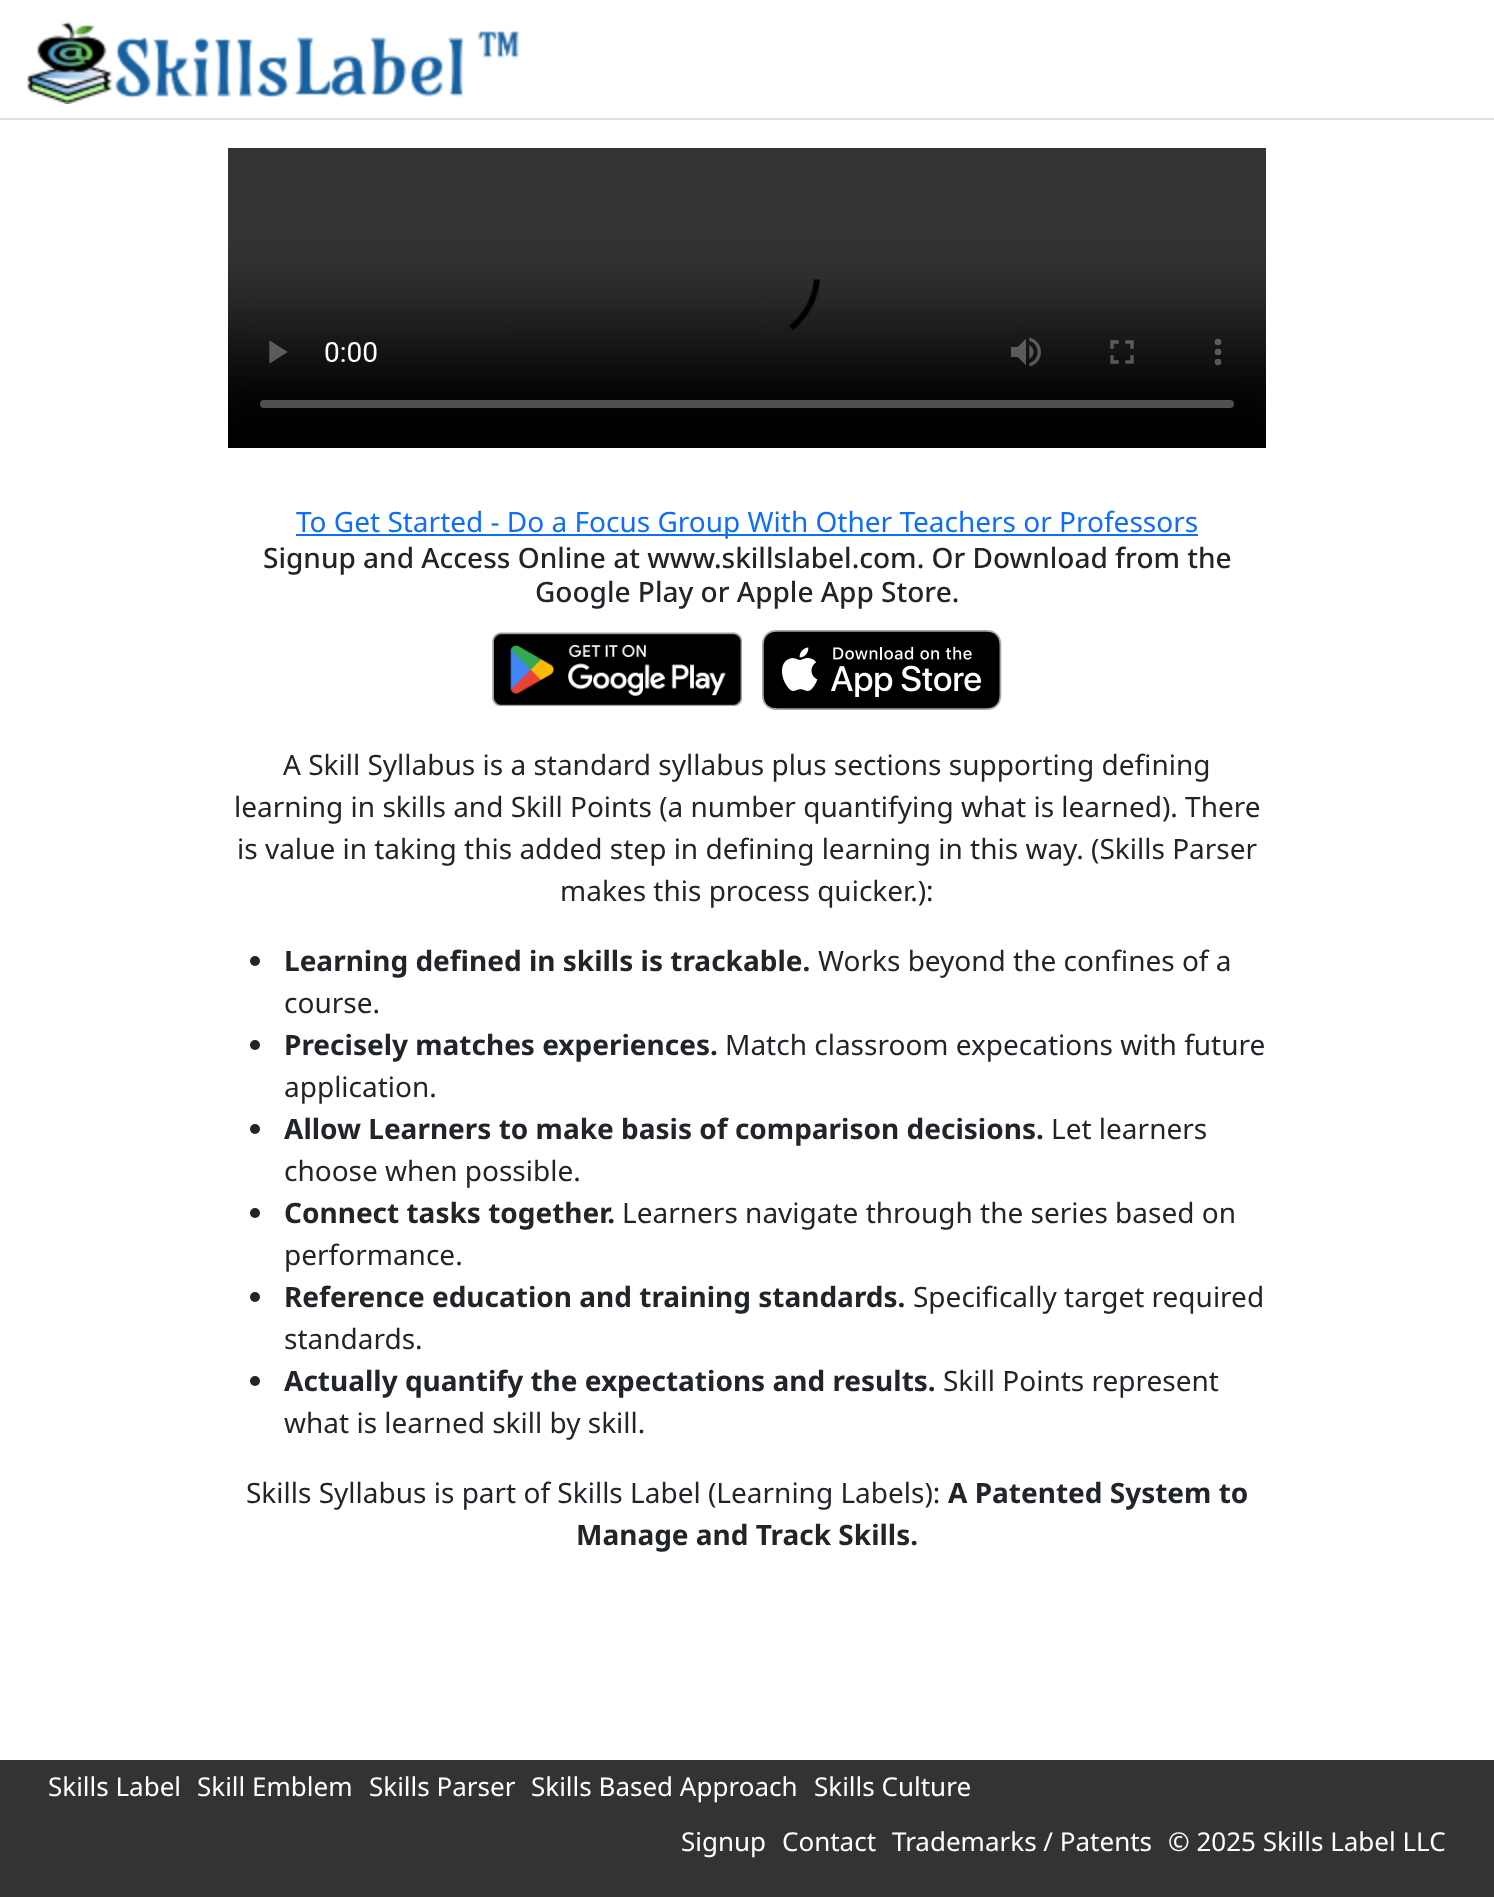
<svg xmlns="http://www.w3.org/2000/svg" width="1494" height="1897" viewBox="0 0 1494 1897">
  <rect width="100%" height="100%" fill="#ffffff"/>
  <rect x="0" y="118" width="1494" height="2" fill="#dee2e6"/>
  <image x="27" y="21" width="492" height="83" href="img1.png"/>
  <image x="228" y="148" width="1038" height="300" href="img2.png"/>
  <rect x="296" y="534" width="902" height="2" fill="#0d6efd"/>
  <text x="296" y="532" font-family="Noto Sans" font-size="28" fill="#0d6efd">To Get Started - Do a Focus Group With Other Teachers or Professors</text>
  <text x="263" y="568" font-family="Noto Sans" font-size="28" font-weight="500" fill="#212529">Signup and Access Online at www.skillslabel.com. Or Download from the</text>
  <text x="535" y="602" font-family="Noto Sans" font-size="28" font-weight="500" fill="#212529">Google Play or Apple App Store.</text>
  <image x="492" y="632" width="250" height="74" href="img3.png"/>
  <image x="762" y="630" width="240" height="80" href="img4.png"/>
  <text x="283" y="775" font-family="Noto Sans" font-size="28" fill="#212529">A Skill Syllabus is a standard syllabus plus sections supporting defining</text>
  <text x="234" y="817" font-family="Noto Sans" font-size="28" fill="#212529">learning in skills and Skill Points (a number quantifying what is learned). There</text>
  <text x="237" y="859" font-family="Noto Sans" font-size="28" fill="#212529">is value in taking this added step in defining learning in this way. (Skills Parser</text>
  <text x="560" y="901" font-family="Noto Sans" font-size="28" fill="#212529">makes this process quicker.):</text>
  <circle cx="255" cy="961" r="5" fill="#212529"/>
  <text x="284" y="971" font-family="Noto Sans" font-size="28" font-weight="bold" fill="#212529">Learning defined in skills is trackable.</text>
  <text x="818" y="971" font-family="Noto Sans" font-size="28" fill="#212529">Works beyond the confines of a</text>
  <text x="284" y="1013" font-family="Noto Sans" font-size="28" fill="#212529">course.</text>
  <circle cx="255" cy="1045" r="5" fill="#212529"/>
  <text x="284" y="1055" font-family="Noto Sans" font-size="28" font-weight="bold" fill="#212529">Precisely matches experiences.</text>
  <text x="725" y="1055" font-family="Noto Sans" font-size="28" fill="#212529">Match classroom expecations with future</text>
  <text x="284" y="1097" font-family="Noto Sans" font-size="28" fill="#212529">application.</text>
  <circle cx="255" cy="1129" r="5" fill="#212529"/>
  <text x="284" y="1139" font-family="Noto Sans" font-size="28" font-weight="bold" fill="#212529">Allow Learners to make basis of comparison decisions.</text>
  <text x="1051" y="1139" font-family="Noto Sans" font-size="28" fill="#212529">Let learners</text>
  <text x="284" y="1181" font-family="Noto Sans" font-size="28" fill="#212529">choose when possible.</text>
  <circle cx="255" cy="1213" r="5" fill="#212529"/>
  <text x="284" y="1223" font-family="Noto Sans" font-size="28" font-weight="bold" fill="#212529">Connect tasks together.</text>
  <text x="622" y="1223" font-family="Noto Sans" font-size="28" fill="#212529">Learners navigate through the series based on</text>
  <text x="284" y="1265" font-family="Noto Sans" font-size="28" fill="#212529">performance.</text>
  <circle cx="255" cy="1297" r="5" fill="#212529"/>
  <text x="284" y="1307" font-family="Noto Sans" font-size="28" font-weight="bold" fill="#212529">Reference education and training standards.</text>
  <text x="913" y="1307" font-family="Noto Sans" font-size="28" fill="#212529">Specifically target required</text>
  <text x="284" y="1349" font-family="Noto Sans" font-size="28" fill="#212529">standards.</text>
  <circle cx="255" cy="1381" r="5" fill="#212529"/>
  <text x="284" y="1391" font-family="Noto Sans" font-size="28" font-weight="bold" fill="#212529">Actually quantify the expectations and results.</text>
  <text x="943" y="1391" font-family="Noto Sans" font-size="28" fill="#212529">Skill Points represent</text>
  <text x="284" y="1433" font-family="Noto Sans" font-size="28" fill="#212529">what is learned skill by skill.</text>
  <text x="246" y="1503" font-family="Noto Sans" font-size="28" fill="#212529">Skills Syllabus is part of Skills Label (Learning Labels):</text>
  <text x="948" y="1503" font-family="Noto Sans" font-size="28" font-weight="bold" fill="#212529">A Patented System to</text>
  <text x="576" y="1545" font-family="Noto Sans" font-size="28" font-weight="bold" fill="#212529">Manage and Track Skills.</text>
  <rect x="0" y="1760" width="1494" height="137" fill="#333333"/>
  <text x="48" y="1796" font-family="Noto Sans" font-size="26" fill="#ffffff">Skills Label</text>
  <text x="197" y="1796" font-family="Noto Sans" font-size="26" fill="#ffffff">Skill Emblem</text>
  <text x="369" y="1796" font-family="Noto Sans" font-size="26" fill="#ffffff">Skills Parser</text>
  <text x="531" y="1796" font-family="Noto Sans" font-size="26" fill="#ffffff">Skills Based Approach</text>
  <text x="814" y="1796" font-family="Noto Sans" font-size="26" fill="#ffffff">Skills Culture</text>
  <text x="681" y="1851" font-family="Noto Sans" font-size="26" fill="#ffffff">Signup</text>
  <text x="782" y="1851" font-family="Noto Sans" font-size="26" fill="#ffffff">Contact</text>
  <text x="892" y="1851" font-family="Noto Sans" font-size="26" fill="#ffffff">Trademarks / Patents</text>
  <text x="1168" y="1851" font-family="Noto Sans" font-size="26" fill="#ffffff">© 2025 Skills Label LLC</text>
</svg>
